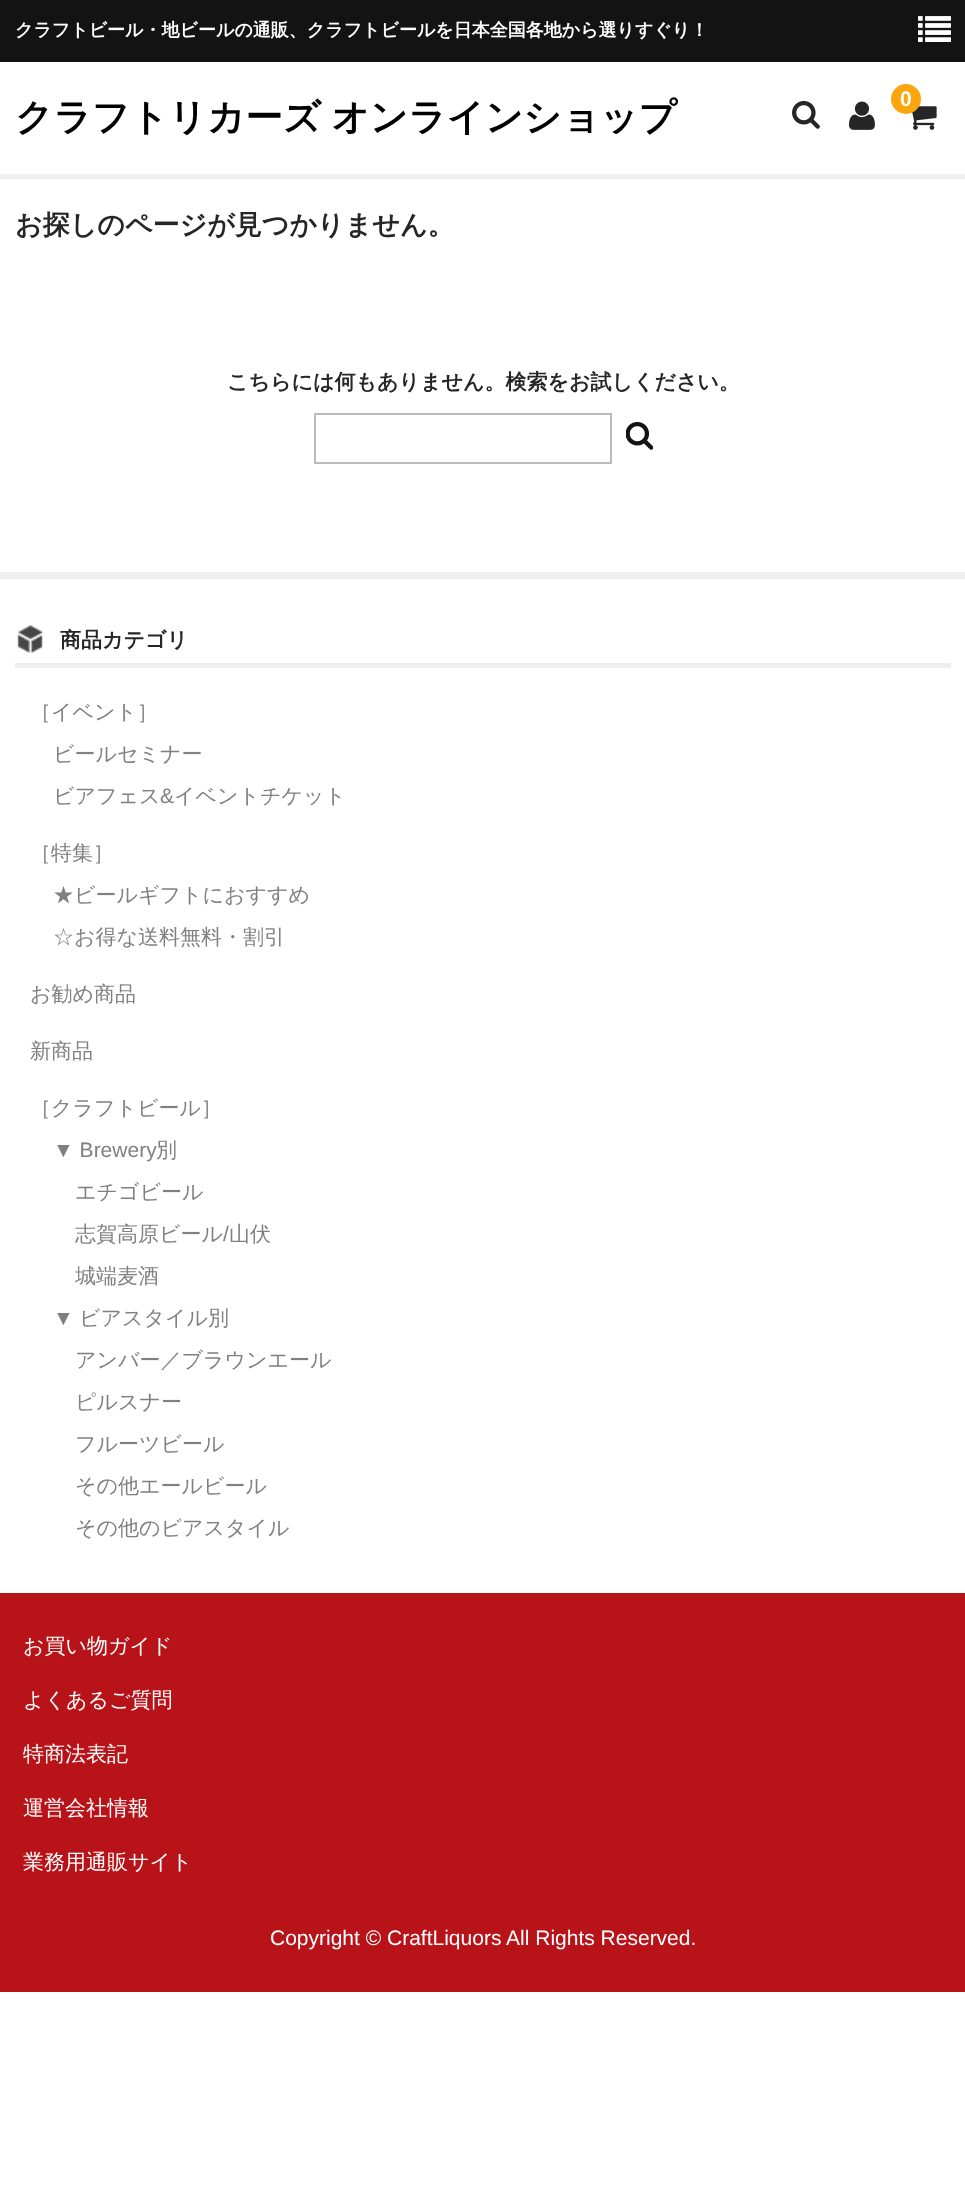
<svg xmlns="http://www.w3.org/2000/svg" width="965" height="2190" viewBox="0 0 965 2190">
  <rect width="100%" height="100%" fill="#ffffff"/>
  <rect x="0" y="174" width="965" height="5" fill="#efefef"/>
  <rect x="0" y="0" width="965" height="62" fill="#131313"/>
  <text x="15" y="36" font-family="WenQuanYi Zen Hei" font-size="18" font-weight="bold" fill="#ffffff">クラフトビール・地ビールの通販、クラフトビールを日本全国各地から選りすぐり！</text>
  <text x="15" y="130" word-spacing="-1" font-family="WenQuanYi Zen Hei" font-size="37.5" font-weight="bold" fill="#000000">クラフトリカーズ オンラインショップ</text>
  <image x="792" y="100" width="28" height="29" href="img1.png"/>
  <image x="849" y="101" width="26" height="29" href="img2.png"/>
  <image x="912" y="106" width="25" height="24" href="img3.png"/>
  <circle cx="906" cy="99" r="15" fill="#fba60d"/>
  <text x="900" y="106" font-family="Liberation Sans" font-size="21" font-weight="bold" fill="#ffffff">0</text>
  <image x="918" y="16" width="33" height="26" href="img4.png"/>
  <text x="15" y="234" font-family="WenQuanYi Zen Hei" font-size="27" font-weight="bold" fill="#262626">お探しのページが見つかりません。</text>
  <text x="227" y="389" font-family="WenQuanYi Zen Hei" font-size="21" font-weight="bold" fill="#262626">こちらには何もありません。検索をお試しください。</text>
  <rect x="315" y="414" width="296" height="49" fill="none" stroke="#bbbbbb" stroke-width="2"/>
  <image x="626" y="421" width="27" height="29" href="img5.png"/>
  <rect x="0" y="572" width="965" height="7" fill="#eeeeee"/>
  <rect x="15" y="663" width="936" height="5" fill="#eeeeee"/>
  <image x="17" y="625" width="26" height="28" href="img6.png"/>
  <text x="60" y="647" font-family="WenQuanYi Zen Hei" font-size="21" font-weight="bold" fill="#262626">商品カテゴリ</text>
  <text x="30" y="719" font-family="WenQuanYi Zen Hei" font-size="21" font-weight="500" fill="#808080">［イベント］</text>
  <text x="53" y="761" font-family="WenQuanYi Zen Hei" font-size="21" font-weight="500" fill="#808080">ビールセミナー</text>
  <text x="53" y="803" font-family="WenQuanYi Zen Hei" font-size="21" font-weight="500" fill="#808080">ビアフェス</text>
  <text x="160" y="803" font-family="Liberation Sans" font-size="21" fill="#808080">&amp;</text>
  <text x="174" y="803" font-family="WenQuanYi Zen Hei" font-size="21" font-weight="500" fill="#808080">イベントチケット</text>
  <text x="30" y="860" font-family="WenQuanYi Zen Hei" font-size="21" font-weight="500" fill="#808080">［特集］</text>
  <text x="53" y="902" font-family="WenQuanYi Zen Hei" font-size="21" font-weight="500" fill="#808080">★ビールギフトにおすすめ</text>
  <text x="53" y="944" font-family="WenQuanYi Zen Hei" font-size="21" font-weight="500" fill="#808080">☆お得な送料無料・割引</text>
  <text x="30" y="1001" font-family="WenQuanYi Zen Hei" font-size="21" font-weight="500" fill="#808080">お勧め商品</text>
  <text x="30" y="1058" font-family="WenQuanYi Zen Hei" font-size="21" font-weight="500" fill="#808080">新商品</text>
  <text x="30" y="1115" font-family="WenQuanYi Zen Hei" font-size="21" font-weight="500" fill="#808080">［クラフトビール］</text>
  <text x="53" y="1157" font-family="Liberation Sans" font-size="21" fill="#808080">▼ Brewery</text>
  <text x="156" y="1157" font-family="WenQuanYi Zen Hei" font-size="21" font-weight="500" fill="#808080">別</text>
  <text x="75" y="1199" font-family="WenQuanYi Zen Hei" font-size="21" font-weight="500" fill="#808080">エチゴビール</text>
  <text x="75" y="1241" font-family="WenQuanYi Zen Hei" font-size="21" font-weight="500" fill="#808080">志賀高原ビール</text>
  <text x="223" y="1241" font-family="Liberation Sans" font-size="21" fill="#808080">/</text>
  <text x="229" y="1241" font-family="WenQuanYi Zen Hei" font-size="21" font-weight="500" fill="#808080">山伏</text>
  <text x="75" y="1283" font-family="WenQuanYi Zen Hei" font-size="21" font-weight="500" fill="#808080">城端麦酒</text>
  <text x="53" y="1325" font-family="Liberation Sans" font-size="21" fill="#808080">▼</text>
  <text x="79" y="1325" font-family="WenQuanYi Zen Hei" font-size="21" font-weight="500" fill="#808080">ビアスタイル別</text>
  <text x="75" y="1367" font-family="WenQuanYi Zen Hei" font-size="21" font-weight="500" fill="#808080">アンバー／ブラウンエール</text>
  <text x="75" y="1409" font-family="WenQuanYi Zen Hei" font-size="21" font-weight="500" fill="#808080">ピルスナー</text>
  <text x="75" y="1451" font-family="WenQuanYi Zen Hei" font-size="21" font-weight="500" fill="#808080">フルーツビール</text>
  <text x="75" y="1493" font-family="WenQuanYi Zen Hei" font-size="21" font-weight="500" fill="#808080">その他エールビール</text>
  <text x="75" y="1535" font-family="WenQuanYi Zen Hei" font-size="21" font-weight="500" fill="#808080">その他のビアスタイル</text>
  <rect x="0" y="1593" width="965" height="399" fill="#b81319"/>
  <text x="23" y="1653" font-family="WenQuanYi Zen Hei" font-size="21" font-weight="500" fill="#ffffff">お買い物ガイド</text>
  <text x="23" y="1707" font-family="WenQuanYi Zen Hei" font-size="21" font-weight="500" fill="#ffffff">よくあるご質問</text>
  <text x="23" y="1761" font-family="WenQuanYi Zen Hei" font-size="21" font-weight="500" fill="#ffffff">特商法表記</text>
  <text x="23" y="1815" font-family="WenQuanYi Zen Hei" font-size="21" font-weight="500" fill="#ffffff">運営会社情報</text>
  <text x="23" y="1869" font-family="WenQuanYi Zen Hei" font-size="21" font-weight="500" fill="#ffffff">業務用通販サイト</text>
  <text x="270" y="1945" font-family="Liberation Sans" font-size="21" fill="#ffffff">Copyright © CraftLiquors All Rights Reserved.</text>
</svg>
